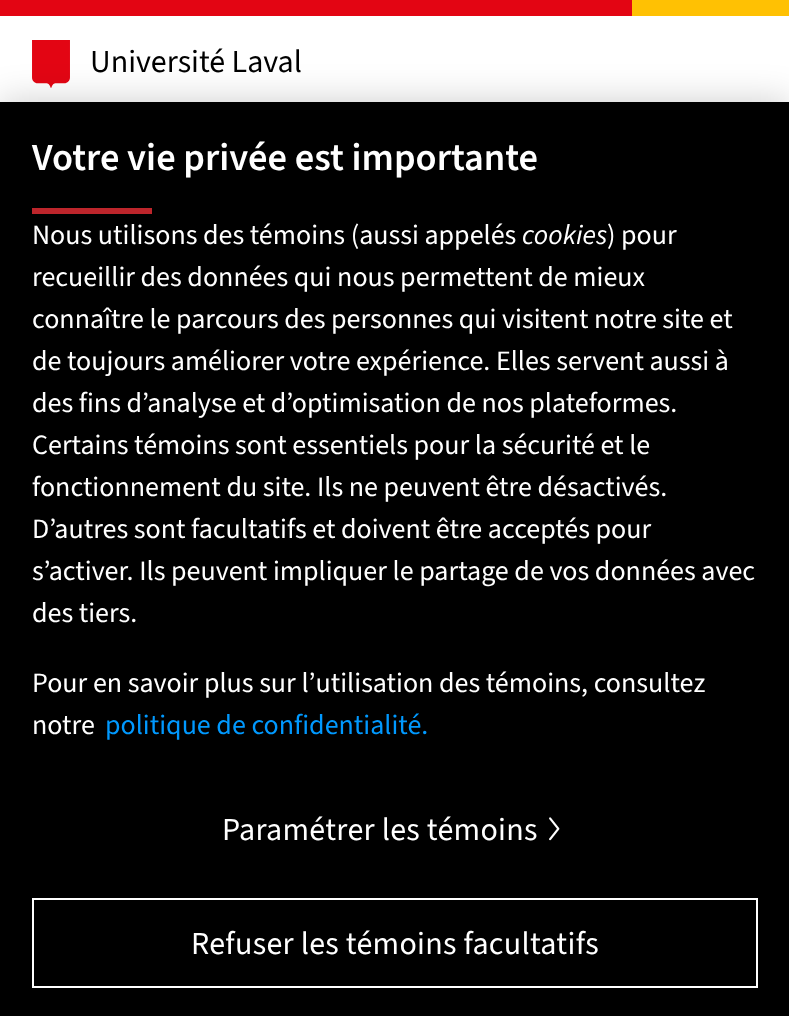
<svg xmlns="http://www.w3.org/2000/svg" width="789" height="1016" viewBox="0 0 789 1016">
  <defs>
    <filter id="blur1" x="-50%" y="-200%" width="200%" height="500%"><feGaussianBlur stdDeviation="18"/></filter>
  </defs>
  <rect width="100%" height="100%" fill="#ffffff"/>
  <rect x="0" y="0" width="632" height="16" fill="#e30513"/>
  <rect x="632" y="0" width="157" height="16" fill="#ffc103"/>
  <image x="32" y="40" width="38" height="48" href="img1.png"/>
  <text x="90" y="72" font-family="'Source Sans 3'" font-size="32" fill="#000000">Université Laval</text>
  <rect x="0" y="102" width="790" height="914" fill="#000000" fill-opacity="0.2" filter="url(#blur1)"/>
  <rect x="0" y="102" width="789" height="914" fill="#000000"/>
  <text x="32" y="170" font-family="'Source Sans 3'" font-size="38.4" font-weight="600" fill="#ffffff">Votre vie privée est importante</text>
  <rect x="32" y="208" width="120" height="6" fill="#bd252b"/>
  <text x="32" y="244" font-family="'Source Sans 3'" font-size="28" fill="#ffffff">Nous utilisons des témoins (aussi appelés</text>
  <text x="522" y="244" font-family="'Source Sans 3'" font-size="28" font-style="italic" fill="#ffffff">cookies</text>
  <text x="607" y="244" font-family="'Source Sans 3'" font-size="28" fill="#ffffff">) pour</text>
  <text x="32" y="286" font-family="'Source Sans 3'" font-size="28" fill="#ffffff">recueillir des données qui nous permettent de mieux</text>
  <text x="32" y="328" font-family="'Source Sans 3'" font-size="28" fill="#ffffff">connaître le parcours des personnes qui visitent notre site et</text>
  <text x="32" y="370" font-family="'Source Sans 3'" font-size="28" fill="#ffffff">de toujours améliorer votre expérience. Elles servent aussi à</text>
  <text x="32" y="412" font-family="'Source Sans 3'" font-size="28" fill="#ffffff">des fins d’analyse et d’optimisation de nos plateformes.</text>
  <text x="32" y="454" font-family="'Source Sans 3'" font-size="28" fill="#ffffff">Certains témoins sont essentiels pour la sécurité et le</text>
  <text x="32" y="496" font-family="'Source Sans 3'" font-size="28" fill="#ffffff">fonctionnement du site. Ils ne peuvent être désactivés.</text>
  <text x="32" y="538" font-family="'Source Sans 3'" font-size="28" fill="#ffffff">D’autres sont facultatifs et doivent être acceptés pour</text>
  <text x="32" y="580" font-family="'Source Sans 3'" font-size="28" fill="#ffffff">s’activer. Ils peuvent impliquer le partage de vos données avec</text>
  <text x="32" y="622" font-family="'Source Sans 3'" font-size="28" fill="#ffffff">des tiers.</text>
  <text x="32" y="692" font-family="'Source Sans 3'" font-size="28" fill="#ffffff">Pour en savoir plus sur l’utilisation des témoins, consultez</text>
  <text x="32" y="734" font-family="'Source Sans 3'" font-size="28" fill="#ffffff">notre</text>
  <text x="105" y="734" font-family="'Source Sans 3'" font-size="28" fill="#0099ff">politique de confidentialité.</text>
  <text x="222" y="840" font-family="'Source Sans 3'" font-size="32" letter-spacing="0.3" fill="#ffffff">Paramétrer les témoins</text>
  <image x="549" y="817" width="11" height="24" href="img2.png"/>
  <rect x="33" y="899" width="724" height="88" fill="none" stroke="#ffffff" stroke-width="2"/>
  <text x="191" y="954" font-family="'Source Sans 3'" font-size="32" letter-spacing="0.3" fill="#ffffff">Refuser les témoins facultatifs</text>
</svg>
